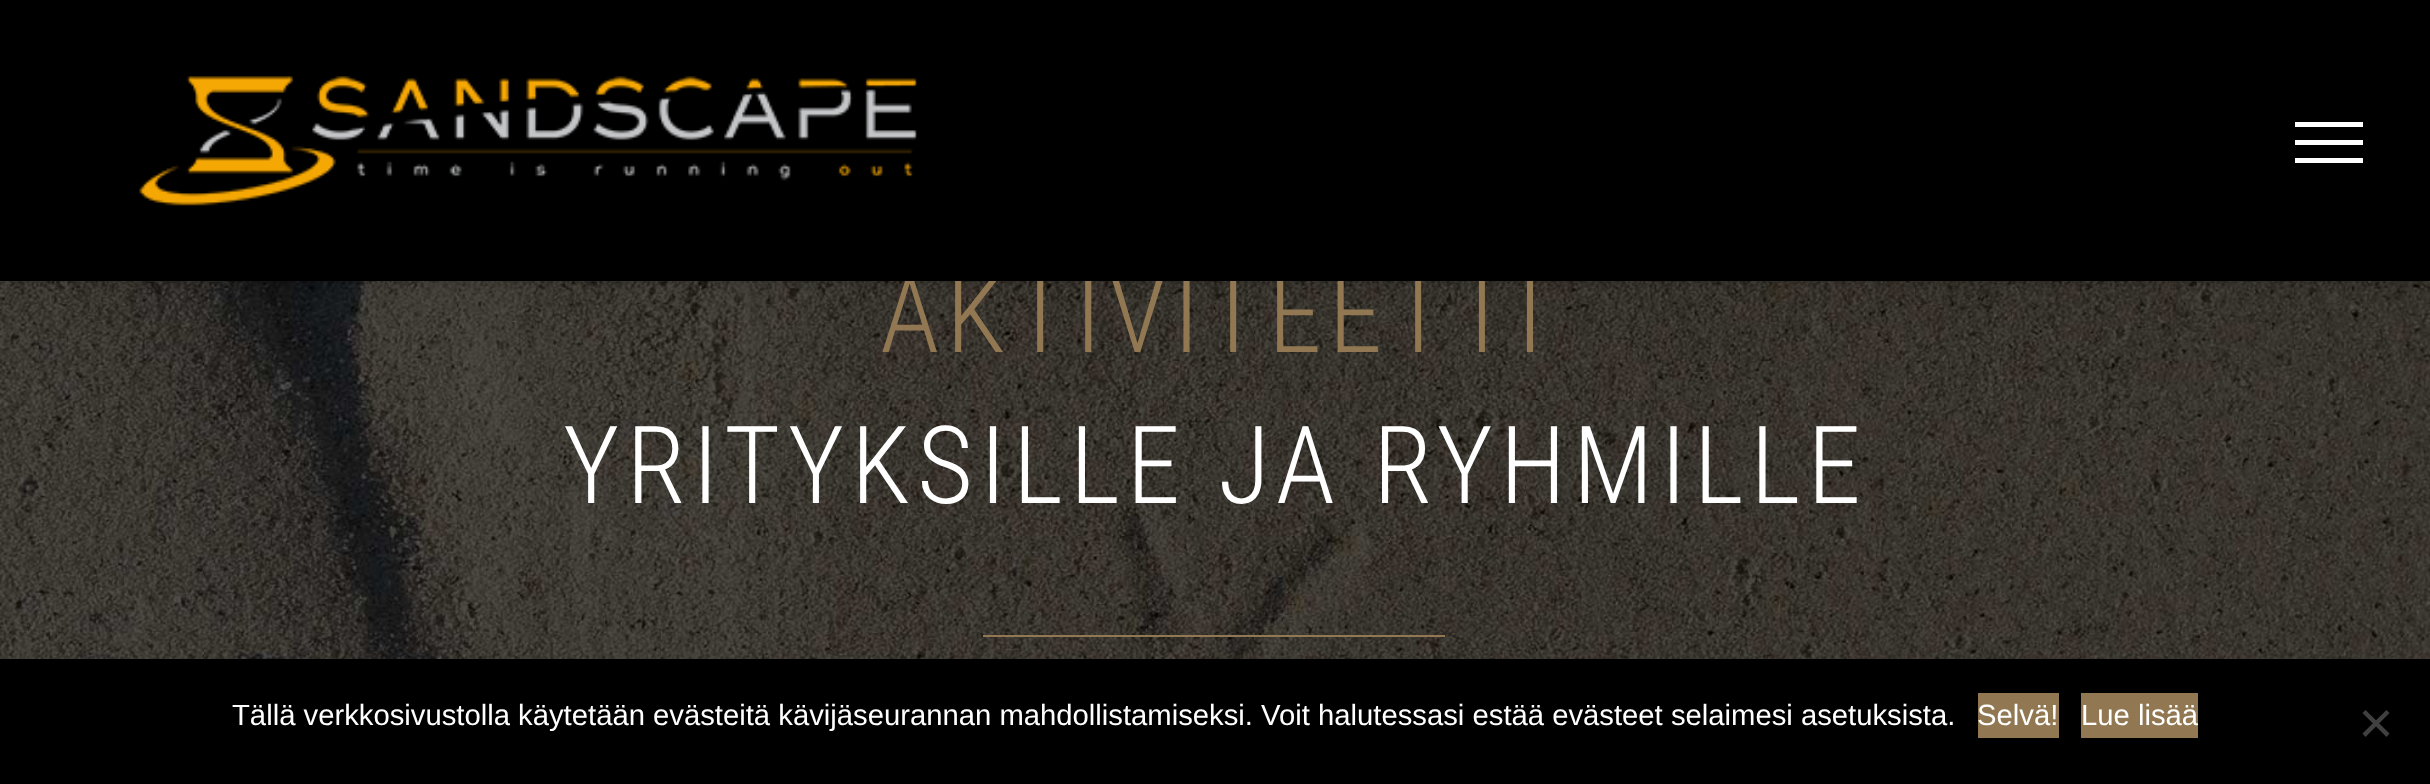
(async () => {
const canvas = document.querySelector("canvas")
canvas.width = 2430
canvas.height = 784
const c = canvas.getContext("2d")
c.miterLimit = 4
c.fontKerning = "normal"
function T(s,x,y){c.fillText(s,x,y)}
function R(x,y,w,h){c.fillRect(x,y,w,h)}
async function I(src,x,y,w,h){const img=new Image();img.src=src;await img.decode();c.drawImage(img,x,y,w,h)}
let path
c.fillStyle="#fff"
R(0,0,2430,784)
await I("2.png",0,281,2430,378)
c.fillStyle="#00000024"
c.filter="blur(56px)"
c.beginPath()
c.rect(5,-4,2421,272)
c.fill()
c.filter="none"
c.fillStyle="#0000001f"
c.filter="blur(3.5px)"
c.beginPath()
c.rect(0,2,2430,282)
c.fill()
c.filter="none"
c.letterSpacing="6.75px"
c.font="300 108px Roboto Condensed"
c.fillStyle="#917852"
T("AKTIVITEETTI",880,352)
c.fillStyle="#000"
R(0,0,2430,281)
await I("1.png",139,76,778,130)
c.fillStyle="#fff"
R(2295,122,68,5)
R(2295,140,68,5)
R(2295,158,68,5)
T("YRITYKSILLE JA RYHMILLE",563,503)
c.fillStyle="#917852"
R(983,635,462,2)
c.fillStyle="#000"
R(0,659,2430,125)
c.letterSpacing="0px"
c.font="29.25px Liberation Sans"
c.fillStyle="#fff"
T("Tällä verkkosivustolla käytetään evästeitä kävijäseurannan mahdollistamiseksi. Voit halutessasi estää evästeet selaimesi asetuksista.",232,725)
c.fillStyle="#917852"
R(1978,693,81,45)
c.fillStyle="#fff"
T("Selvä!",1977,725)
c.fillStyle="#917852"
R(2081,693,117,45)
c.fillStyle="#fff"
T("Lue lisää",2081,725)
c.fillStyle="#404040"
path = new Path2D("M2386.5 710l3 3l-24 24l-3-3.5z")
c.fill(path)
path = new Path2D("M2362.5 713l3-3l24 23.5l-3 3.5z")
c.fill(path)
})()
